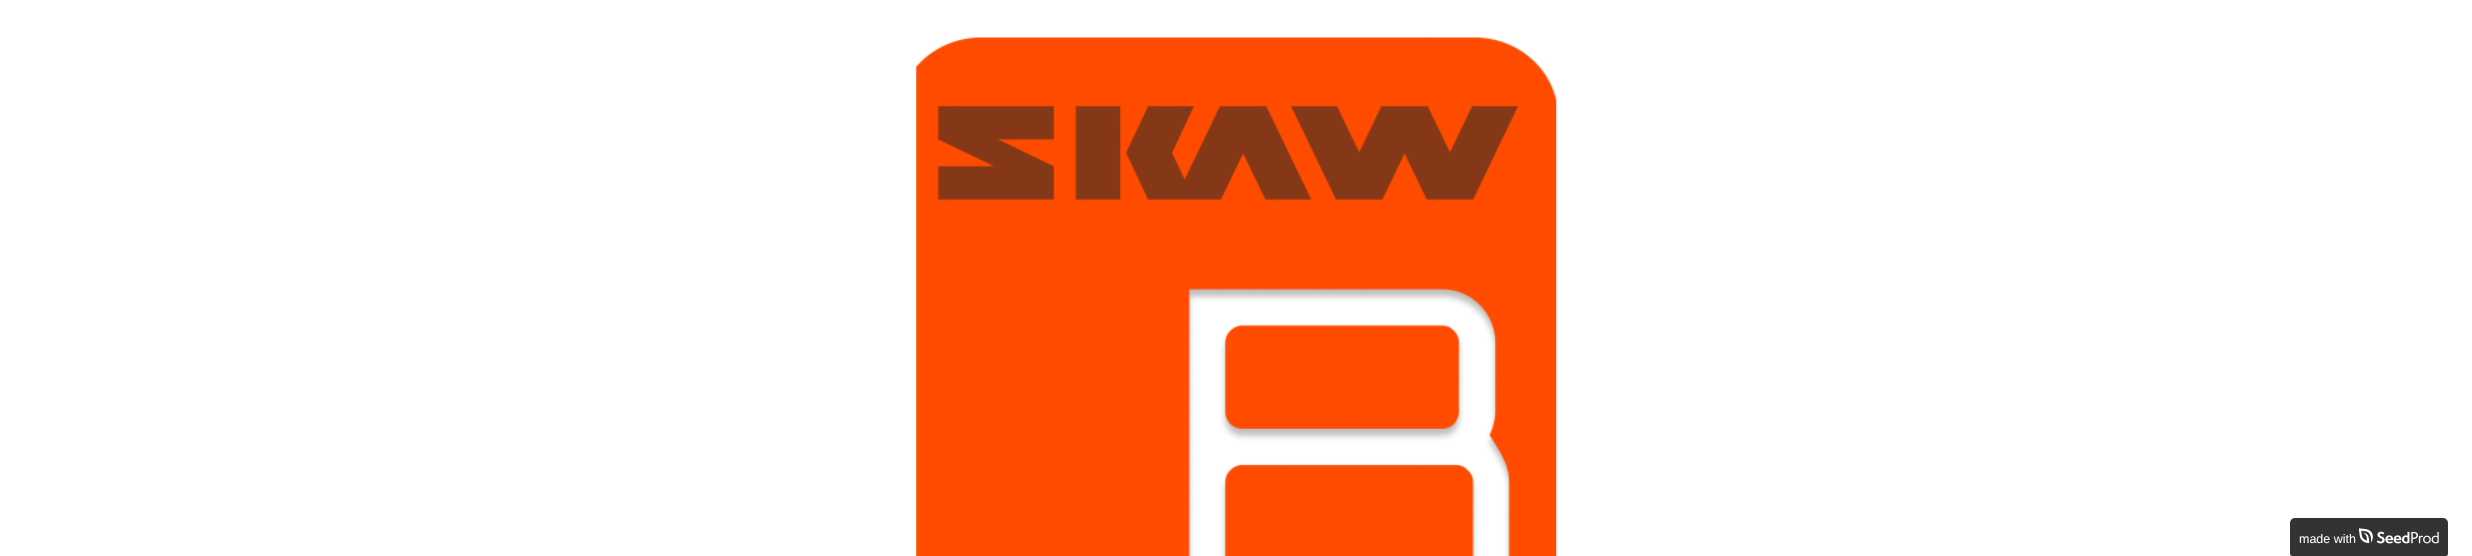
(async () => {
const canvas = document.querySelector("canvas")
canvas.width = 2472
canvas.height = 556
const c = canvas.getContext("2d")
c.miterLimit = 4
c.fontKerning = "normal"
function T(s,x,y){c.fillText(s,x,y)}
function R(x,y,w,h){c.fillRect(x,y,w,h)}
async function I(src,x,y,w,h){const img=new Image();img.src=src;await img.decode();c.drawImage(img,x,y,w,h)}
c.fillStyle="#fff"
R(0,0,2472,556)
await I("1.png",916,37,641,519)
c.fillStyle="#333"
c.beginPath()
c.roundRect(2290,518,158,38,[5,5,2.5,2.5])
c.fill()
c.font="12.5px Liberation Sans"
c.fillStyle="#fff"
T("made with",2299,543)
await I("2.png",2359,528,80,16)
})()
